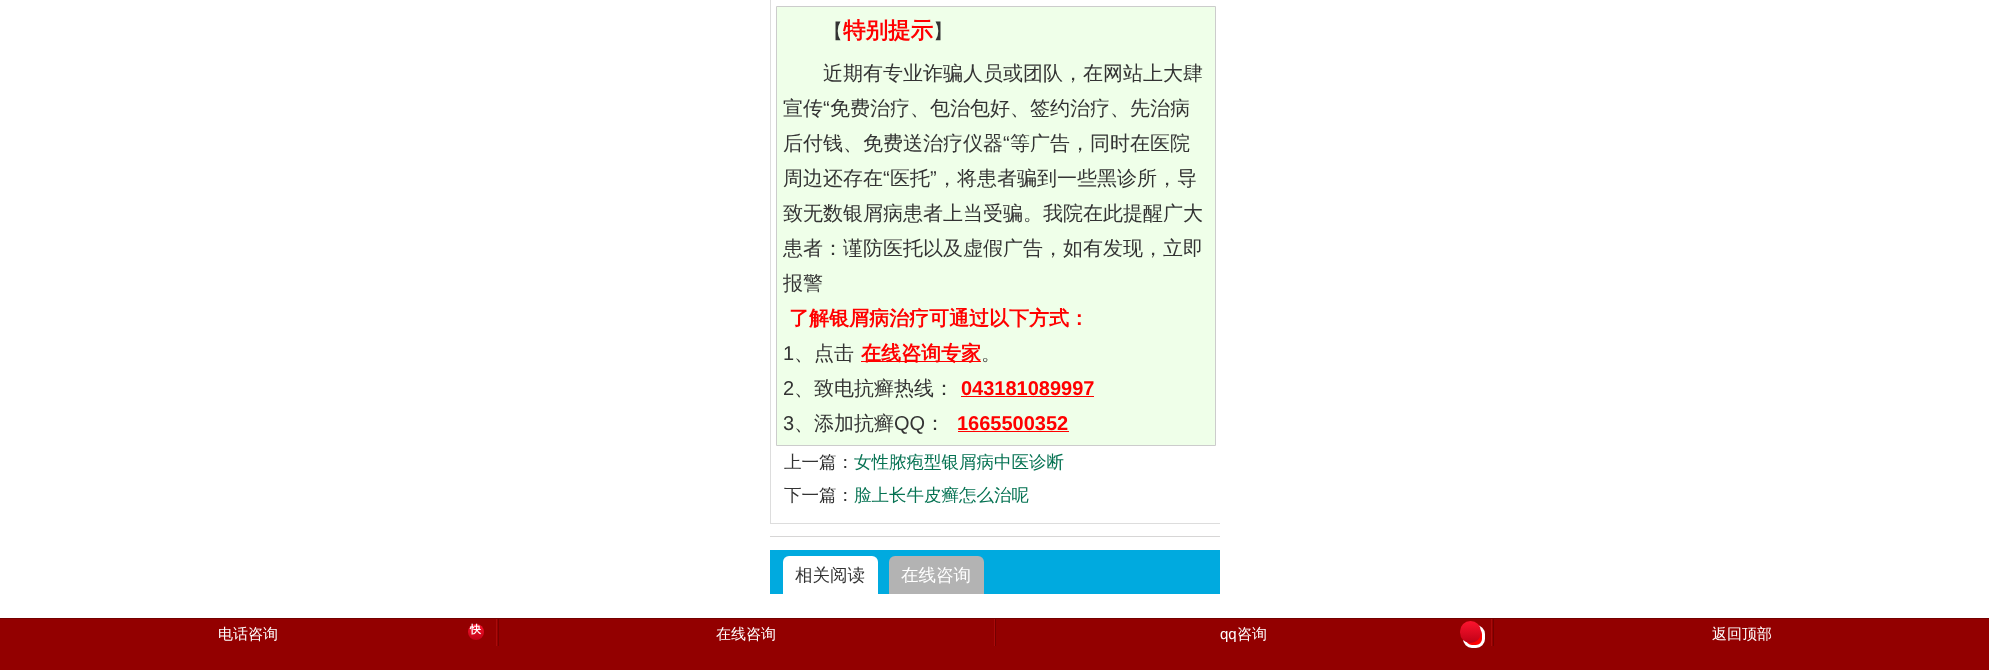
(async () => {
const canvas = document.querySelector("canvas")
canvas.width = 1989
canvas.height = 670
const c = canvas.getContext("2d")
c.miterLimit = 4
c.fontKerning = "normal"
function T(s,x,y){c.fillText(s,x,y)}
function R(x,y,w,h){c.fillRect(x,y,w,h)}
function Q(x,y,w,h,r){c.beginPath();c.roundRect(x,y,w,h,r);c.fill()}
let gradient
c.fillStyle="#fff"
R(0,0,1989,670)
c.fillStyle="#d7d6d6"
R(770,536,450,1)
c.save()
c.beginPath()
c.rect(770,0,450,536)
c.clip()
c.strokeStyle="#ddd"
c.strokeRect(770.5,-.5,452,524)
c.restore()
c.fillStyle="#efffe9"
c.beginPath()
c.rect(776.5,6.5,439,439)
c.fill()
c.strokeStyle="#ccc"
c.stroke()
c.font="500 20px WenQuanYi Zen Hei"
c.fillStyle="#333"
T("【",823,38)
c.font="bold 22.5px WenQuanYi Zen Hei"
c.fillStyle="#f00"
T("特别提示",843,38)
c.font="500 20px WenQuanYi Zen Hei"
c.fillStyle="#333"
T("】",933,38)
T("近期有专业诈骗人员或团队，在网站上大肆",823,80)
T("宣传",783,115)
c.font="20px Liberation Sans"
T("“",823,115)
c.font="500 20px WenQuanYi Zen Hei"
T("免费治疗、包治包好、签约治疗、先治病",830,115)
T("后付钱、免费送治疗仪器",783,150)
c.font="20px Liberation Sans"
T("“",1003,150)
c.font="500 20px WenQuanYi Zen Hei"
T("等广告，同时在医院",1010,150)
T("周边还存在",783,185)
c.font="20px Liberation Sans"
T("“",883,185)
c.font="500 20px WenQuanYi Zen Hei"
T("医托",890,185)
c.font="20px Liberation Sans"
T("”",930,185)
c.font="500 20px WenQuanYi Zen Hei"
T("，将患者骗到一些黑诊所，导",937,185)
T("致无数银屑病患者上当受骗。我院在此提醒广大",783,220)
T("患者：谨防医托以及虚假广告，如有发现，立即",783,255)
T("报警",783,290)
c.font="bold 20px WenQuanYi Zen Hei"
c.fillStyle="#f00"
T("了解银屑病治疗可通过以下方式：",789,325)
c.font="20px Liberation Sans"
c.fillStyle="#333"
T("1",783,360)
c.font="500 20px WenQuanYi Zen Hei"
T("、点击",794,360)
c.fillStyle="#f00"
R(861,361,120,1)
c.font="bold 20px WenQuanYi Zen Hei"
T("在线咨询专家",861,360)
c.font="500 20px WenQuanYi Zen Hei"
c.fillStyle="#333"
T("。",981,360)
c.font="20px Liberation Sans"
T("2",783,395)
c.font="500 20px WenQuanYi Zen Hei"
T("、致电抗癣热线：",794,395)
c.font="bold 20px Liberation Sans"
c.fillStyle="#f00"
T("043181089997",961,395)
R(961,396,133,1)
c.font="20px Liberation Sans"
c.fillStyle="#333"
T("3",783,430)
c.font="500 20px WenQuanYi Zen Hei"
T("、添加抗癣",794,430)
c.font="20px Liberation Sans"
T("QQ",894,430)
c.font="500 20px WenQuanYi Zen Hei"
T("：",925,430)
c.font="bold 20px Liberation Sans"
c.fillStyle="#f00"
T("1665500352",957,430)
R(958,431,111,1)
c.font="500 17.5px WenQuanYi Zen Hei"
c.fillStyle="#333"
T("上一篇：",784,468)
c.fillStyle="#057252"
T("女性脓疱型银屑病中医诊断",854,468)
c.fillStyle="#333"
T("下一篇：",784,501)
c.fillStyle="#057252"
T("脸上长牛皮癣怎么治呢",854,501)
c.fillStyle="#00aadf"
R(770,550,450,44)
c.fillStyle="#fff"
c.beginPath()
c.roundRect(783,556,95,38,[6,6,0,0])
c.fill()
c.fillStyle="#333"
T("相关阅读",795,581)
c.fillStyle="#b3b3b3"
c.beginPath()
c.roundRect(889,556,95,38,[6,6,0,0])
c.fill()
c.fillStyle="#fff"
T("在线咨询",901,581)
c.fillStyle="#740000"
R(0,618,1989,1)
c.fillStyle="#930000"
R(0,619,995,51)
c.fillStyle="#aa0a0a"
R(496,619,1,27)
c.font="500 15px WenQuanYi Zen Hei"
c.fillStyle="#fff"
T("电话咨询",218,639)
gradient = c.createLinearGradient(476,624,476,640)
gradient.addColorStop(0,"#fd142e")
gradient.addColorStop(1,"#bf0116")
c.fillStyle = gradient
c.beginPath()
c.arc(476,632,8,0,7)
c.fill()
c.font="bold 11px WenQuanYi Zen Hei"
c.fillStyle="#fff"
T("快",470,633)
c.fillStyle="#aa0a0a"
R(994,619,1,27)
c.fillStyle="#740000"
R(498,619,1,27)
c.font="500 15px WenQuanYi Zen Hei"
c.fillStyle="#fff"
T("在线咨询",716,639)
c.fillStyle="#930000"
R(995,619,994,51)
c.fillStyle="#aa0a0a"
R(1491,619,1,27)
c.fillStyle="#740000"
R(995,619,1,27)
c.fillStyle="#f00"
c.beginPath()
c.roundRect(1464.5,626.5,19,20,7.5)
c.fill()
c.strokeStyle="#fff"
c.lineWidth=3
c.stroke()
gradient = c.createLinearGradient(1471,621,1471,643)
gradient.addColorStop(0,"#fd142e")
gradient.addColorStop(1,"#bf0116")
c.fillStyle = gradient
Q(1460,621,21,22,10.5)
c.font="15px Liberation Sans"
c.fillStyle="#fff"
T("qq",1220,639)
c.font="500 15px WenQuanYi Zen Hei"
T("咨询",1237,639)
c.fillStyle="#740000"
R(1493,619,1,27)
c.fillStyle="#fff"
T("返回顶部",1712,639)
})()
